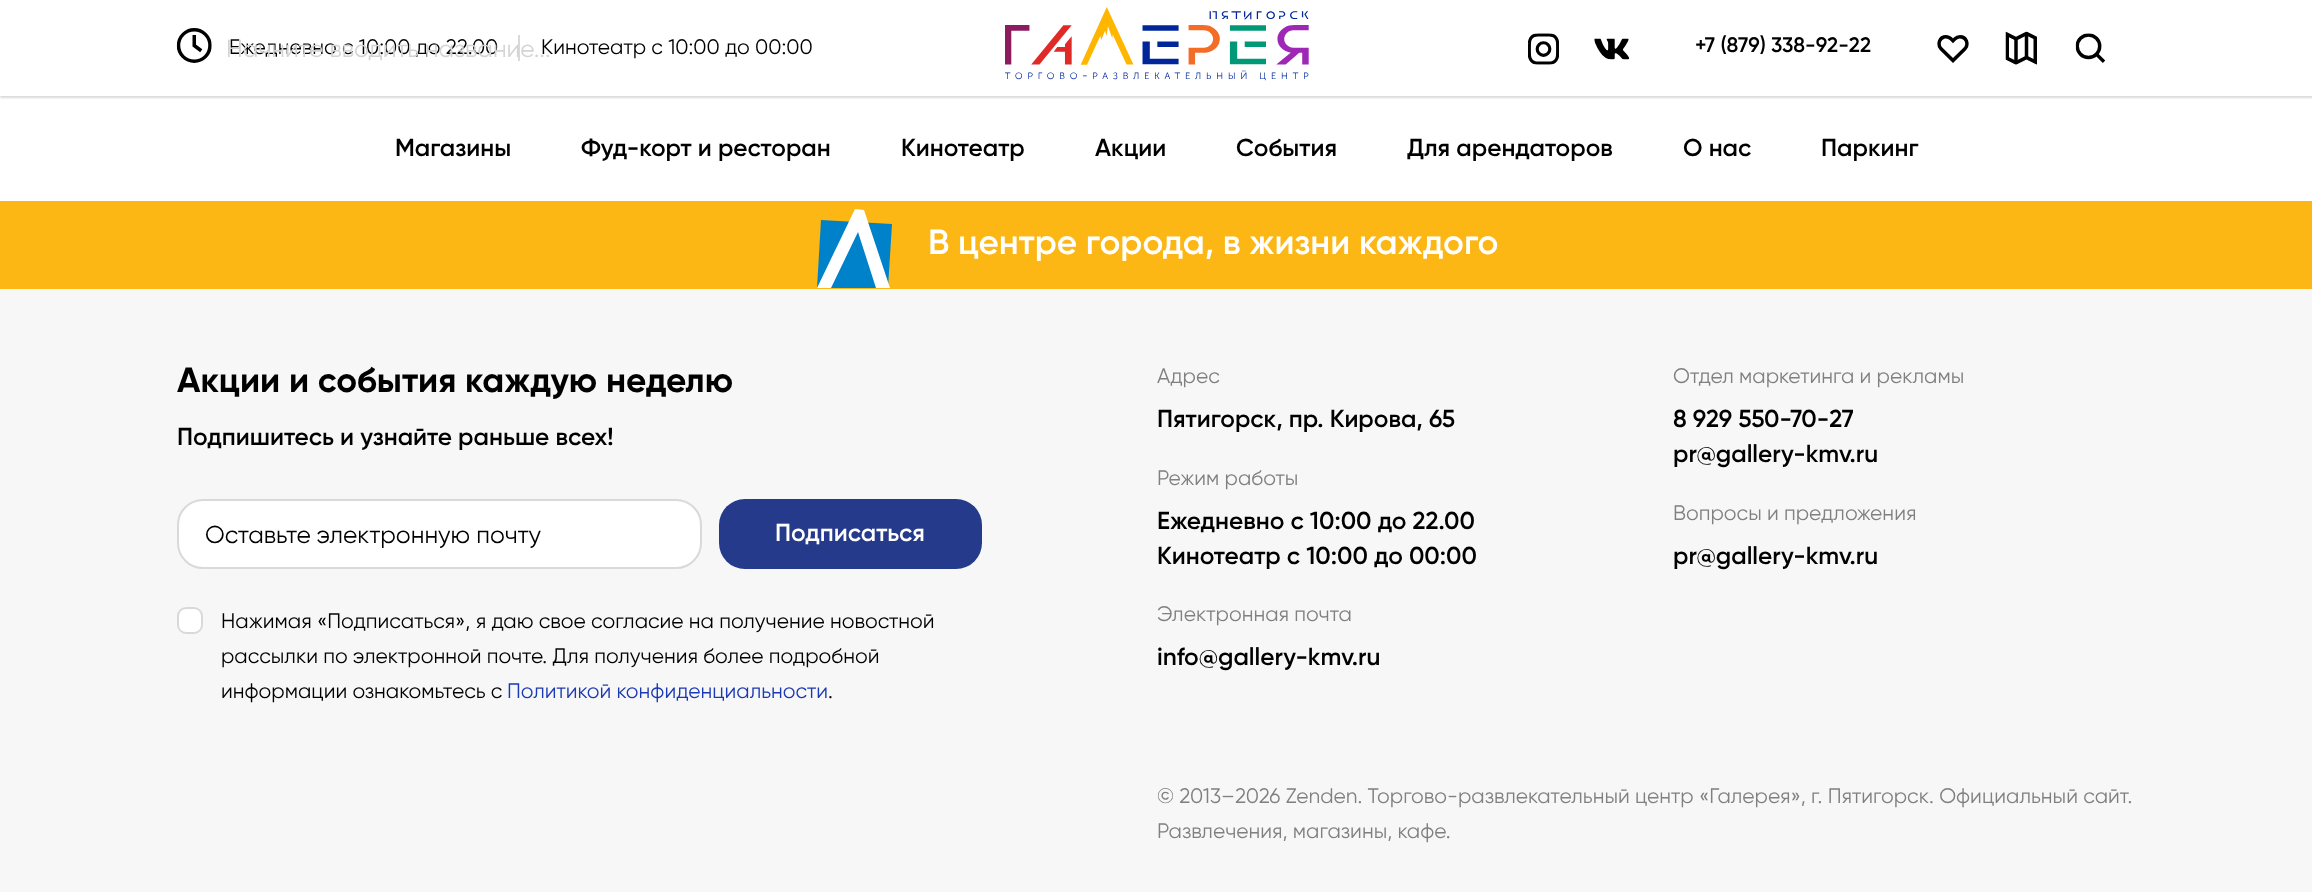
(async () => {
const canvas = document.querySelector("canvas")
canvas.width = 2312
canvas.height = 892
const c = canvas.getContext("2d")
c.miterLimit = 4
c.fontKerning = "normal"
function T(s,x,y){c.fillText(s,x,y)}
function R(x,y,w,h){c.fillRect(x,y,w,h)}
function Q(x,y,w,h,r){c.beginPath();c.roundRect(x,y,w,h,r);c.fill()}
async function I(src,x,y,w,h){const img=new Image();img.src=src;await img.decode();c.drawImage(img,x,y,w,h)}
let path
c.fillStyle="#fff"
R(0,0,2312,892)
c.save()
c.beginPath()
c.rect(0,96,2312,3)
c.clip()
c.fillStyle="#00000026"
c.filter="blur(1px)"
c.beginPath()
c.rect(0,2,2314,96)
c.fill()
c.filter="none"
c.restore()
await I("1.png",1005,7,304,74)
c.font="21px Gilroy"
c.fillStyle="#000"
T("Ежедневно с 10:00 до 22.00",229,54)
c.fillStyle="#d9d9d9"
R(518,35,2,26)
c.fillStyle="#000"
T("Кинотеатр с 10:00 до 00:00",541,54)
c.font="24.5px Gilroy"
c.fillStyle="#d4d4d4"
T("Начните вводить название...",226,57)
await I("2.png",1937,35,32,28)
await I("3.png",2005,31,32,34)
await I("4.png",2075,33,30,30)
await I("5.png",1528,33,31,32)
await I("6.png",1594,38,36,22)
c.font="600 21px Gilroy"
c.fillStyle="#000"
T("+7 (879) 338-92-22",1695,52)
await I("7.png",176,28,36,35)
c.font="600 24.5px Gilroy"
T("Магазины",395,156)
T("Фуд-корт и ресторан",581,156)
T("Кинотеатр",901,156)
T("Акции",1095,156)
T("События",1236,156)
T("Для арендаторов",1407,156)
T("О нас",1683,156)
T("Паркинг",1821,156)
c.fillStyle="#fdb714"
R(0,201,2312,88)
c.fillStyle="#0082ca"
path = new Path2D("M888 288h-71l4-68l71 4z")
c.fill(path)
c.fillStyle="#fff"
path = new Path2D("M890 288h-14l-18-56l-27 56h-14l38-79l9 1z")
c.fill(path)
c.font="600 35px Gilroy"
T("В центре города, в жизни каждого",928,254)
c.fillStyle="#f7f7f7"
R(0,289,2312,603)
c.font="bold 35px Gilroy"
c.fillStyle="#000"
T("Акции и события каждую неделю",177,392)
c.font="600 24.5px Gilroy"
T("Подпишитесь и узнайте раньше всех!",177,445)
c.fillStyle="#fff"
c.beginPath()
c.roundRect(178,500,523,68,25)
c.fill()
c.strokeStyle="#d9d9d9"
c.lineWidth=2
c.stroke()
c.font="24.5px Gilroy"
c.fillStyle="#000"
T("Оставьте электронную почту",205,543)
c.fillStyle="#263a8b"
Q(719,499,263,70,26)
c.font="600 24.5px Gilroy"
c.fillStyle="#fff"
T("Подписаться",775,541)
c.beginPath()
c.roundRect(178,608,24,25,8)
c.fill()
c.stroke()
c.font="21px Gilroy"
c.fillStyle="#000"
T("Нажимая «Подписаться», я даю свое согласие на получение новостной",221,628)
T("рассылки по электронной почте. Для получения более подробной",221,663)
T("информации ознакомьтесь с",221,698)
c.fillStyle="#1b39b3"
T("Политикой конфиденциальности",507,698)
c.fillStyle="#000"
T(".",828,698)
c.fillStyle="#808080"
T("Адрес",1157,383)
c.font="600 24.5px Gilroy"
c.fillStyle="#000"
T("Пятигорск, пр. Кирова, 65",1157,427)
c.font="21px Gilroy"
c.fillStyle="#808080"
T("Отдел маркетинга и рекламы",1673,383)
c.font="600 24.5px Gilroy"
c.fillStyle="#000"
T("8 929 550-70-27",1673,427)
T("pr@gallery-kmv.ru",1673,462)
c.font="21px Gilroy"
c.fillStyle="#808080"
T("Режим работы",1157,485)
c.font="600 24.5px Gilroy"
c.fillStyle="#000"
T("Ежедневно с 10:00 до 22.00",1157,529)
T("Кинотеатр с 10:00 до 00:00",1157,564)
c.font="21px Gilroy"
c.fillStyle="#808080"
T("Вопросы и предложения",1673,520)
c.font="600 24.5px Gilroy"
c.fillStyle="#000"
T("pr@gallery-kmv.ru",1673,564)
c.font="21px Gilroy"
c.fillStyle="#808080"
T("Электронная почта",1157,621)
c.font="600 24.5px Gilroy"
c.fillStyle="#000"
T("info@gallery-kmv.ru",1157,665)
c.font="21px Gilroy"
c.fillStyle="#808080"
T("© 2013–2026 Zenden. Торгово-развлекательный центр «Галерея», г. Пятигорск. Официальный сайт.",1157,803)
T("Развлечения, магазины, кафе.",1157,838)
})()
